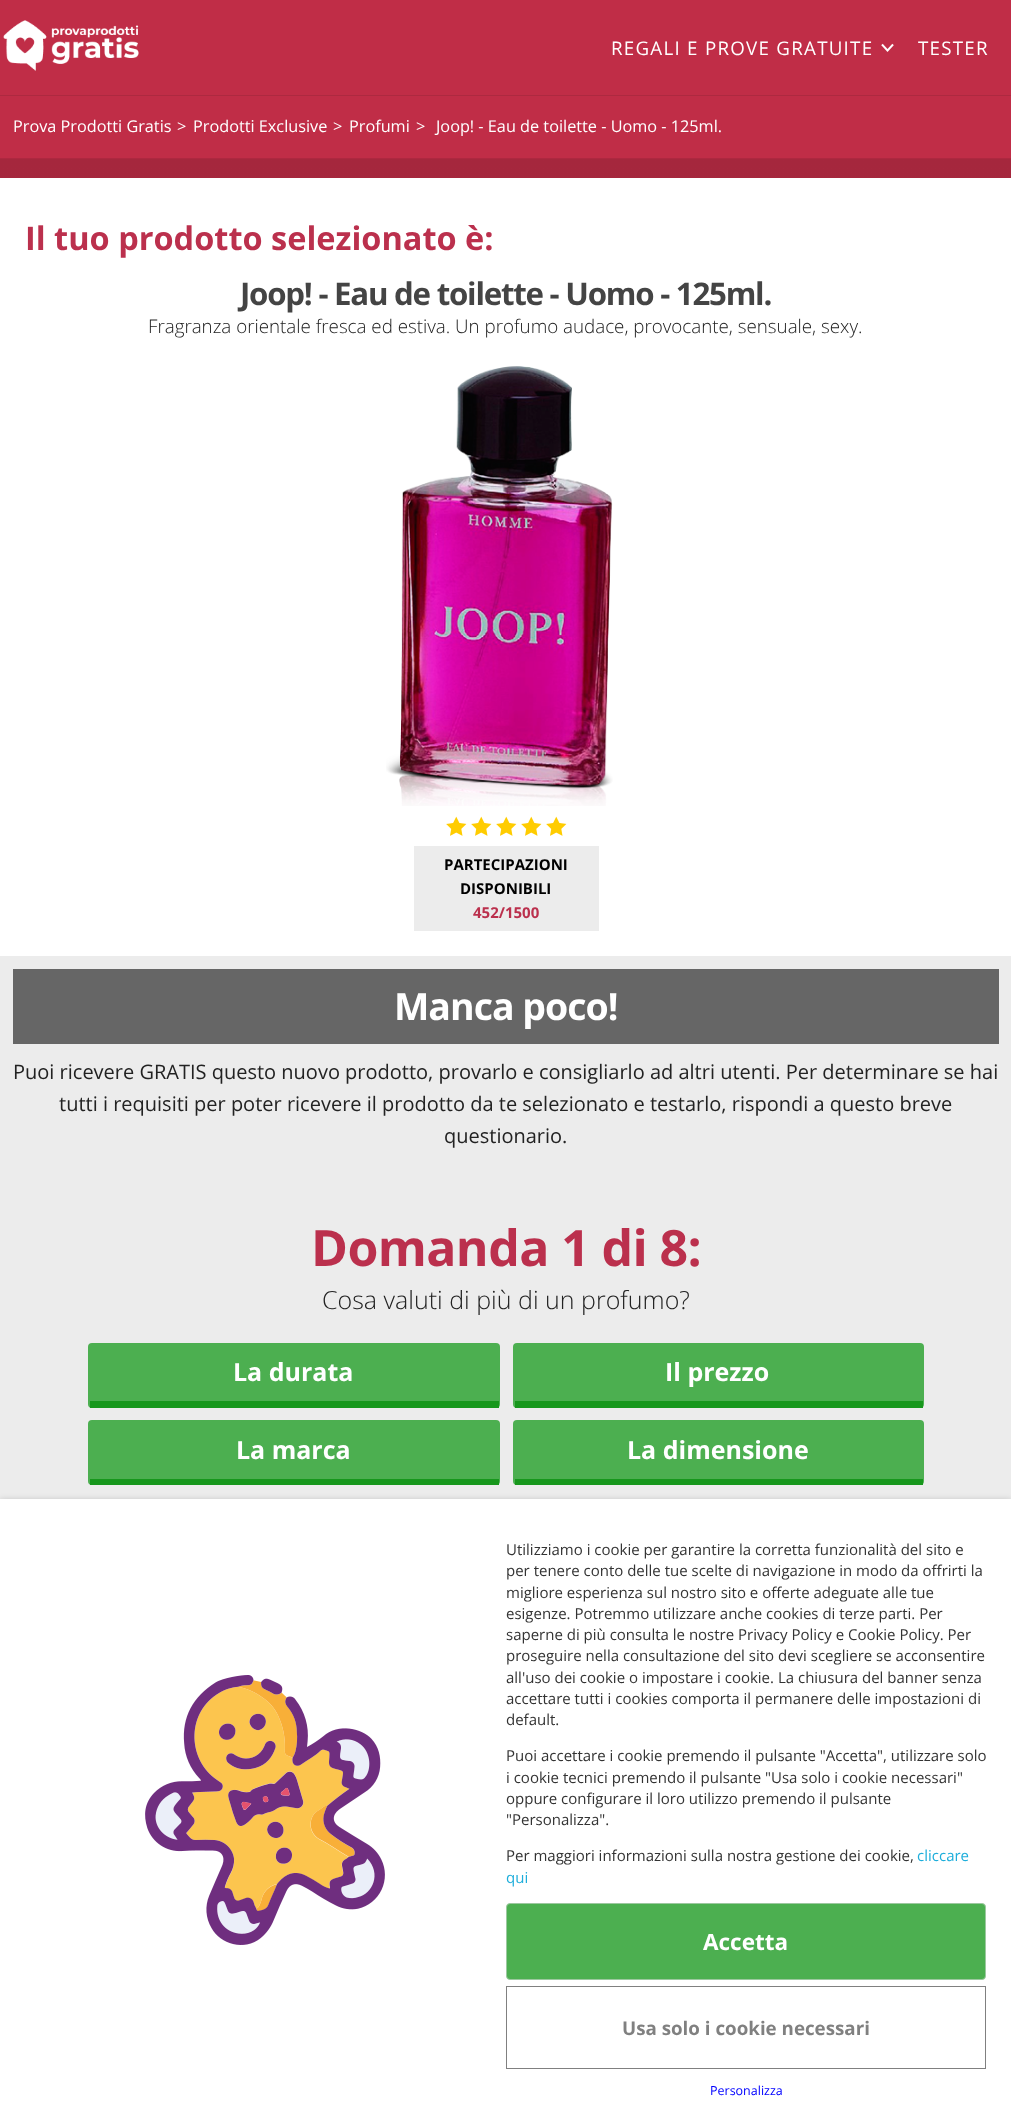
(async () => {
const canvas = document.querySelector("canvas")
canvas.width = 1011
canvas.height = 2125
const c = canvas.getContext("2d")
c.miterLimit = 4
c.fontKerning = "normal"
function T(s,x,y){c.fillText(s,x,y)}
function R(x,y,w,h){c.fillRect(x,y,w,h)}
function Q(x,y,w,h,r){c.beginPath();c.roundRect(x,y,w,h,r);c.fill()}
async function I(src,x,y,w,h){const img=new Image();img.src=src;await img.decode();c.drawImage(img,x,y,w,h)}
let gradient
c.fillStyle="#c02d47"
R(0,0,1011,2125)
c.fillStyle="#ad2940"
R(0,95,1011,1)
await I("1.png",3,20,136,51)
c.letterSpacing="1.25px"
c.font="18.75px Open Sans"
c.fillStyle="#fff"
T("REGALI E PROVE GRATUITE",611,55)
await I("2.png",881,43,13,9)
T("TESTER",918,55)
c.fillStyle="#ad2840"
R(0,158,1011,1)
c.letterSpacing="0px"
c.font="16.25px Open Sans"
c.fillStyle="#fff"
T("Prova Prodotti Gratis",13,132)
T(">",177,132)
T("Prodotti Exclusive",193,132)
T(">",333,132)
T("Profumi",349,132)
T(">",416,132)
T("Joop! - Eau de toilette - Uomo - 125ml.",436,132)
gradient = c.createLinearGradient(506,1859,506,159)
gradient.addColorStop(0,"#c02d47")
gradient.addColorStop(1,"#a5273d")
c.fillStyle = gradient
R(0,159,1011,19)
c.fillStyle="#fff"
R(0,178,1011,778)
c.font="bold 32.5px Open Sans"
c.fillStyle="#bb304d"
T("Il tuo prodotto selezionato è:",25,250)
c.letterSpacing="-1.25px"
c.font="bold 31.25px Open Sans"
c.fillStyle="#444"
T("Joop! - Eau de toilette - Uomo - 125ml.",240,305)
c.letterSpacing="0px"
c.font="300 18.75px Open Sans"
c.fillStyle="#222"
T("Fragranza orientale fresca ed estiva. Un profumo audace, provocante, sensuale, sexy.",148,333)
await I("3.png",386,366,227,440)
await I("4.png",446,816,21,20)
await I("4.png",471,816,21,20)
await I("4.png",496,816,21,20)
await I("4.png",521,816,21,20)
await I("4.png",546,816,21,20)
c.fillStyle="#ececec"
R(414,846,185,85)
c.font="bold 15px Open Sans"
c.fillStyle="#000"
T("PARTECIPAZIONI",444,870)
T("DISPONIBILI",460,894)
c.fillStyle="#bb304d"
T("452/1500",473,918)
c.fillStyle="#ececec"
R(0,956,1011,543)
c.fillStyle="#666"
R(13,969,986,75)
c.letterSpacing="-1px"
c.font="bold 37.5px Open Sans"
c.fillStyle="#fff"
T("Manca poco!",394,1020)
c.letterSpacing="0px"
c.font="20px Open Sans"
c.fillStyle="#222"
T("Puoi ricevere GRATIS questo nuovo prodotto, provarlo e consigliarlo ad altri utenti. Per determinare se hai",13,1079)
T("tutti i requisiti per poter ricevere il prodotto da te selezionato e testarlo, rispondi a questo breve",59,1111)
T("questionario.",444,1143)
c.letterSpacing="-0.6px"
c.font="bold 50px Open Sans"
c.fillStyle="#bb304d"
T("Domanda 1 di 8:",311,1266)
c.letterSpacing="0px"
c.font="300 25px Open Sans"
c.fillStyle="#222"
T("Cosa valuti di più di un profumo?",322,1309)
c.fillStyle="#4caf50"
Q(88,1343,412,65,4)
c.fillStyle="#17971c"
R(90,1401,409,7)
c.font="bold 25px Open Sans"
c.fillStyle="#fff"
T("La durata",233,1381)
c.fillStyle="#4caf50"
Q(513,1343,411,65,4)
c.fillStyle="#17971c"
R(515,1401,408,7)
c.fillStyle="#fff"
T("Il prezzo",665,1381)
c.fillStyle="#4caf50"
Q(88,1420,412,65,4)
c.fillStyle="#17971c"
R(90,1479,409,6)
c.fillStyle="#fff"
T("La marca",236,1459)
c.fillStyle="#4caf50"
Q(513,1420,411,65,4)
c.fillStyle="#17971c"
R(515,1479,408,6)
c.fillStyle="#fff"
T("La dimensione",627,1459)
c.fillStyle="#00000033"
c.filter="blur(3px)"
c.beginPath()
c.rect(0,1500,1011,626)
c.fill()
c.filter="none"
c.fillStyle="#fff"
R(0,1499,1011,626)
await I("5.png",145,1675,240,270)
c.font="15px Open Sans"
c.fillStyle="#333"
T("Utilizziamo i cookie per garantire la corretta funzionalità del sito e",506,1555)
T("per tenere conto delle tue scelte di navigazione in modo da offrirti la",506,1576)
T("migliore esperienza sul nostro sito e offerte adeguate alle tue",506,1598)
T("esigenze. Potremmo utilizzare anche cookies di terze parti. Per",506,1619)
T("saperne di più consulta le nostre Privacy Policy e Cookie Policy. Per",506,1640)
T("proseguire nella consultazione del sito devi scegliere se acconsentire",506,1661)
T("all'uso dei cookie o impostare i cookie. La chiusura del banner senza",506,1683)
T("accettare tutti i cookies comporta il permanere delle impostazioni di",506,1704)
T("default.",506,1725)
T("Puoi accettare i cookie premendo il pulsante \"Accetta\", utilizzare solo",506,1761)
T("i cookie tecnici premendo il pulsante \"Usa solo i cookie necessari\"",506,1783)
T("oppure configurare il loro utilizzo premendo il pulsante",506,1804)
T("\"Personalizza\".",506,1825)
T("Per maggiori informazioni sulla nostra gestione dei cookie,",506,1861)
c.fillStyle="#1eaedb"
T("cliccare",917,1861)
T("qui",506,1883)
c.fillStyle="#4caf50"
c.beginPath()
c.roundRect(506.5,1903.5,479,76,3.5)
c.fill()
c.strokeStyle="#9dc8a0"
c.stroke()
c.font="bold 22.5px Open Sans"
c.fillStyle="#fff"
T("Accetta",703,1950)
c.strokeStyle="#808080"
c.strokeRect(506.5,1986.5,479,82)
c.font="bold 18.75px Open Sans"
c.fillStyle="#808080"
T("Usa solo i cookie necessari",622,2035)
c.font="12.5px Open Sans"
c.fillStyle="#00f"
T("Personalizza",710,2095)
})()
